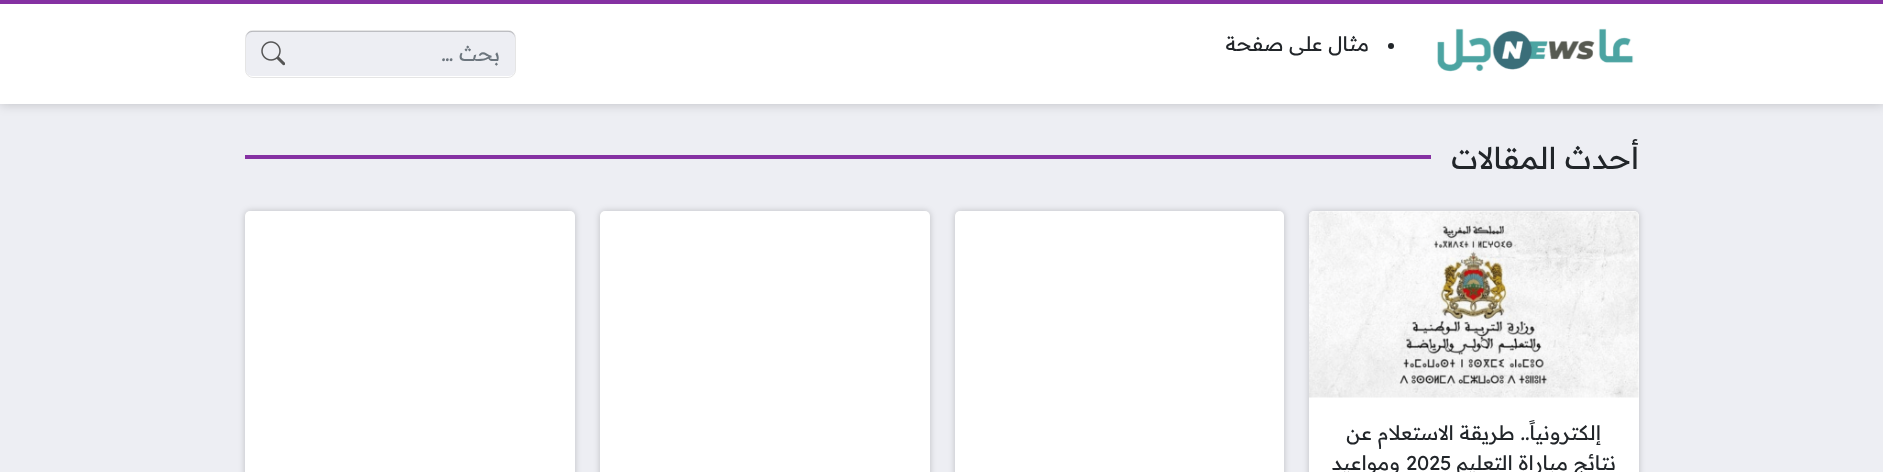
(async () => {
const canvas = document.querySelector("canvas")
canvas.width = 1883
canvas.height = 472
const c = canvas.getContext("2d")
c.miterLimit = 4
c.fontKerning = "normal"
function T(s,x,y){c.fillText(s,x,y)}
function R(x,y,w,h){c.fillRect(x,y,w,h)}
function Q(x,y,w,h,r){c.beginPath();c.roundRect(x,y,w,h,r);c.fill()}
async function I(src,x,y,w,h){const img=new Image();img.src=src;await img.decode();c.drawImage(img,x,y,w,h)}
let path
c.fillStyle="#edeef3"
R(0,0,1883,472)
c.fillStyle="#00000033"
c.filter="blur(6px)"
c.beginPath()
c.rect(0,0,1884,104)
c.fill()
c.filter="none"
c.fillStyle="#8531a2"
R(0,0,1883,4)
c.fillStyle="#fff"
R(0,4,1883,100)
await I("1.png",1437,28,197,44)
c.fillStyle="#212529"
c.beginPath()
c.arc(1391,46,3,0,7)
c.fill()
c.direction="rtl"
c.font="20px Readex Pro"
T("مثال على صفحة",1369,51)
c.fillStyle="#edeef3"
Q(246,31,269,45,6)
await I("2.png",261,41,24,25)
c.fillStyle="#00000033"
path = new Path2D("M252 32h257c3 0 6 3 6 7c0-3-1-7-5-8h-259c-4 1-5 5-5 8c0-4 3-7 6-7z")
c.fill(path)
c.beginPath()
c.roundRect(245.5,30.5,270,47,7.5)
c.strokeStyle="#0000001a"
c.stroke()
c.fillStyle="#6c757d"
T("بحث …",500,61)
c.font="30px Readex Pro"
c.fillStyle="#212529"
T("أحدث المقالات",1639,169)
c.fillStyle="#8531a2"
R(245,155,1186,4)
c.fillStyle="#00000033"
c.filter="blur(3px)"
c.beginPath()
c.roundRect(1309,211,330,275,5)
c.fill()
c.filter="none"
c.fillStyle="#fff"
Q(1309,211,330,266,5)
await I("3.png",1309,211,330,187)
c.font="20px Readex Pro"
c.fillStyle="#212529"
T("إلكترونياً.. طريقة الاستعلام عن",1601,440)
T("نتائج مباراة التعليم",1616,470)
c.direction="ltr"
T("2025",1406,470)
c.direction="rtl"
T("ومواعيد",1400,470)
c.fillStyle="#00000033"
c.filter="blur(3px)"
c.beginPath()
c.roundRect(955,211,329,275,5)
c.fill()
c.filter="none"
c.fillStyle="#fff"
Q(955,211,329,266,5)
c.fillStyle="#00000033"
c.filter="blur(3px)"
c.beginPath()
c.roundRect(600,211,330,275,5)
c.fill()
c.filter="none"
c.fillStyle="#fff"
Q(600,211,330,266,5)
c.fillStyle="#00000033"
c.filter="blur(3px)"
c.beginPath()
c.roundRect(245,211,330,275,5)
c.fill()
c.filter="none"
c.fillStyle="#fff"
Q(245,211,330,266,5)
})()
